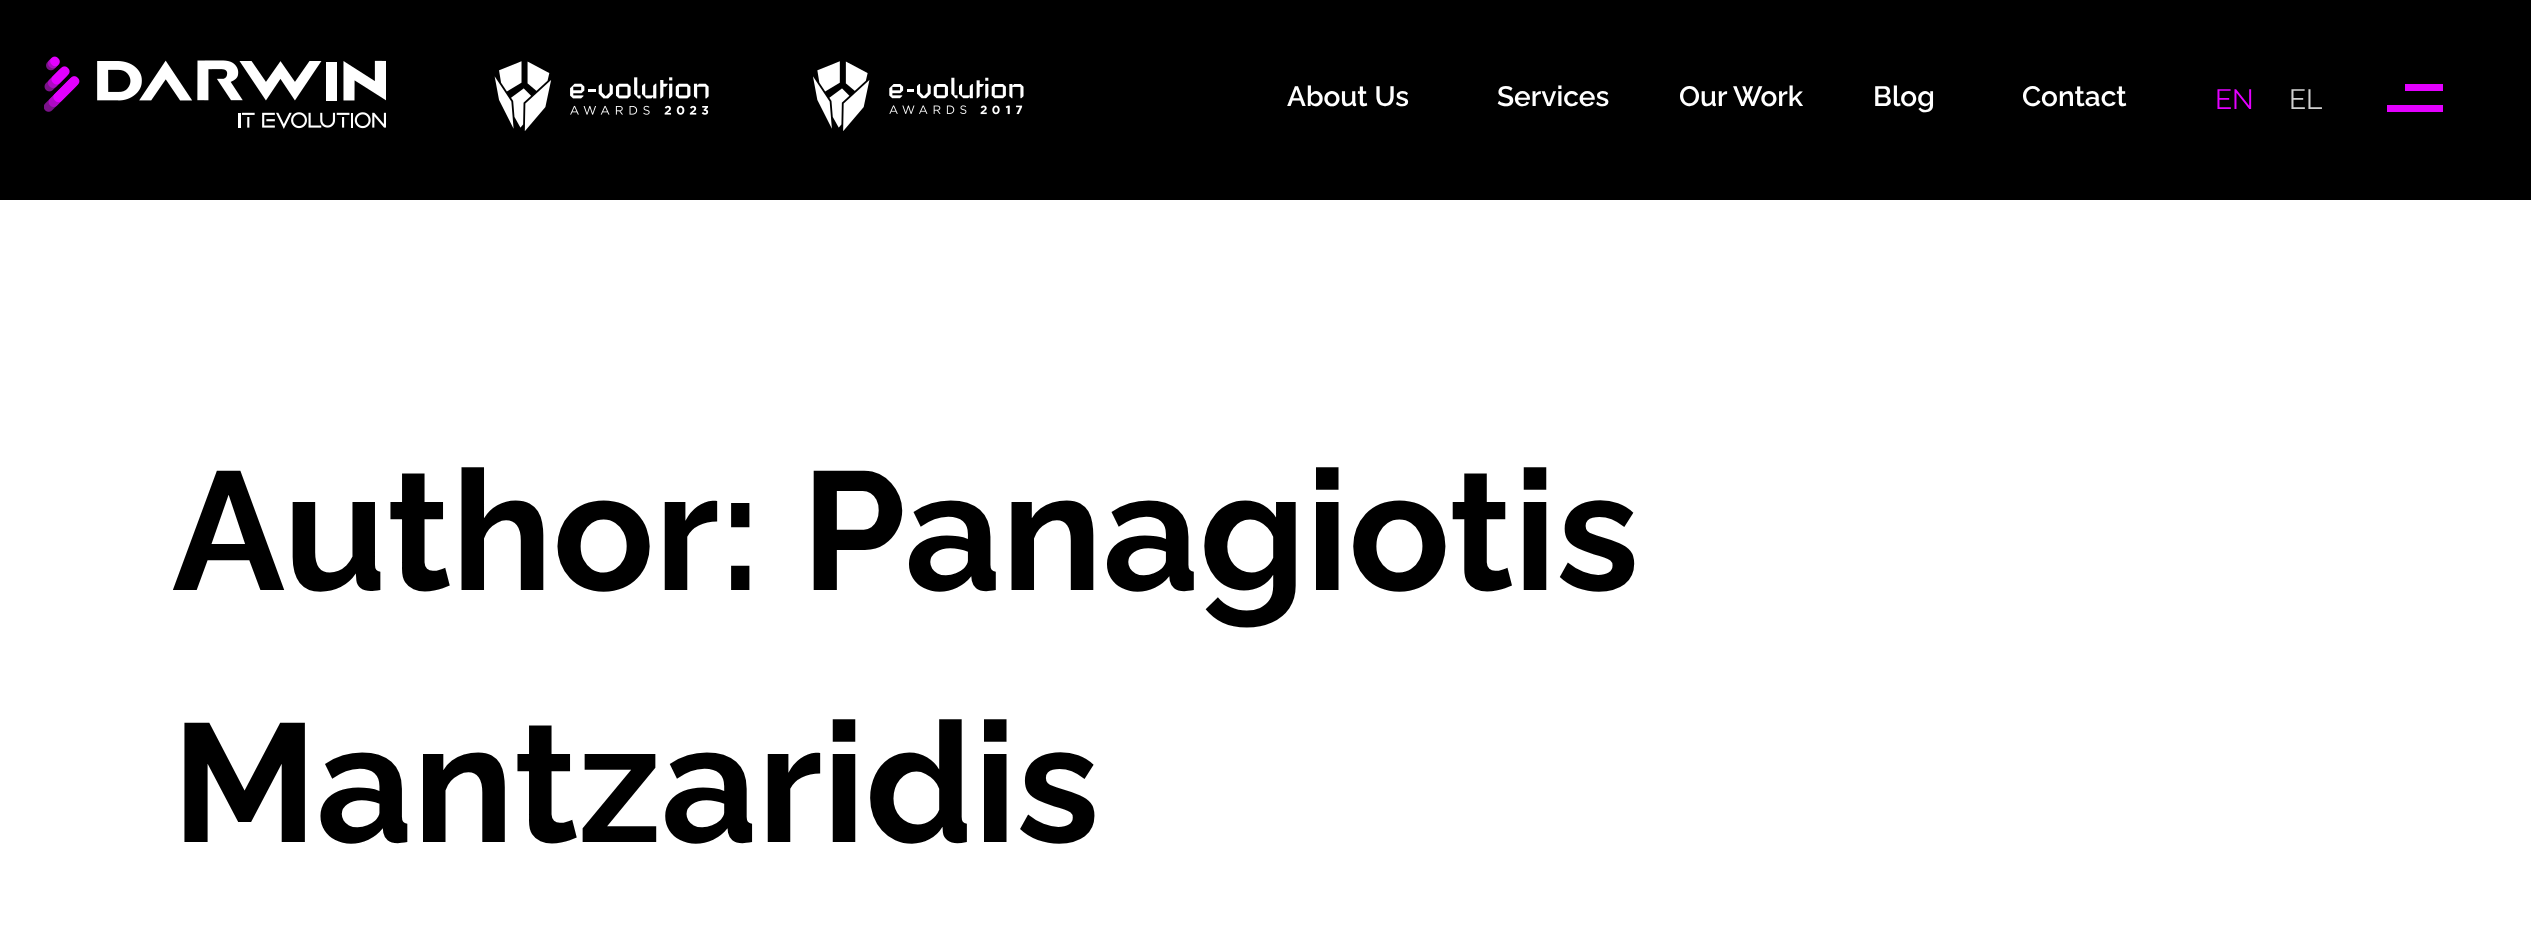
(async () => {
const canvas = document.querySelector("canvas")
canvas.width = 2531
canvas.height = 944
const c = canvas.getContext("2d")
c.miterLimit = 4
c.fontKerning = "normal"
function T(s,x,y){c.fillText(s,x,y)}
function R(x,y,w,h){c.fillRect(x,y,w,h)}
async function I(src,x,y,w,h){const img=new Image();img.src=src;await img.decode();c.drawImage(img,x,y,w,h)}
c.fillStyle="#fff"
R(0,0,2531,944)
c.fillStyle="#000"
R(0,0,2531,200)
await I("1.png",44,56,342,73)
await I("2.png",494,61,215,70)
await I("3.png",813,61,211,70)
c.font="600 28px Raleway"
c.fillStyle="#fff"
T("About Us",1287,106)
T("Services",1497,106)
T("Our Work",1679,106)
T("Blog",1873,106)
T("Contact",2022,106)
c.font="28px Raleway"
c.fillStyle="#e300ff"
T("EN",2215,109)
c.fillStyle="#d0d0d0"
T("EL",2289,109)
c.fillStyle="#e300ff"
R(2405,84,38,7)
R(2387,105,56,7)
c.font="bold 168px Raleway"
c.fillStyle="#000"
T("Author: Panagiotis",172,590)
T("Mantzaridis",172,842)
})()
